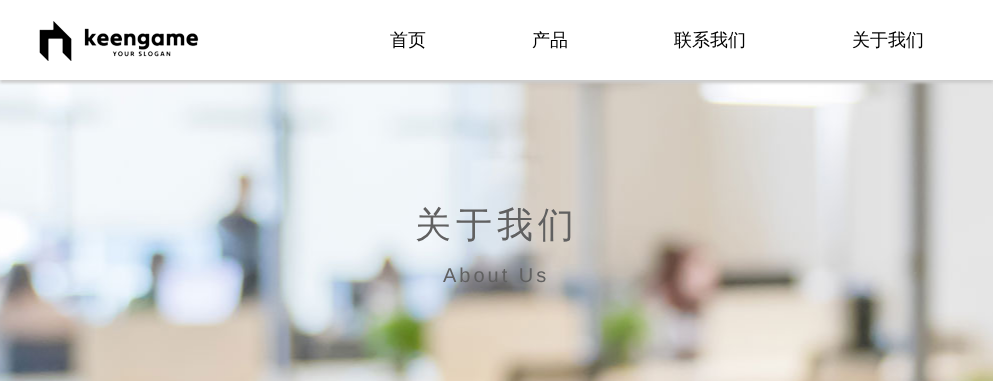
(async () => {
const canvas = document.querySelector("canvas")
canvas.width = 993
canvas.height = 381
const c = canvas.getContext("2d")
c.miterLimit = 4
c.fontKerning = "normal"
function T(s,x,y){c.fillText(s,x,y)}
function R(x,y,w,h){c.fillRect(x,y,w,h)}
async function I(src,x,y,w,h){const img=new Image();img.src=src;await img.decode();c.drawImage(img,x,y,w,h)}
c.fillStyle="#fff"
R(0,0,993,381)
await I("2.png",0,80,993,301)
c.save()
c.beginPath()
c.rect(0,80,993,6)
c.clip()
c.fillStyle="#ccc"
c.filter="blur(1.5px)"
c.beginPath()
c.rect(0,3,993,80)
c.fill()
c.filter="none"
c.restore()
await I("1.png",39,21,160,40)
c.font="500 18px WenQuanYi Zen Hei"
c.fillStyle="#000"
T("首页",390,46)
T("产品",532,46)
T("联系我们",674,46)
T("关于我们",852,46)
c.letterSpacing="5px"
c.font="500 36px WenQuanYi Zen Hei"
c.fillStyle="#606060"
T("关于我们",415,237)
c.letterSpacing="3px"
c.font="20px Liberation Sans"
T("About Us",443,282)
})()
